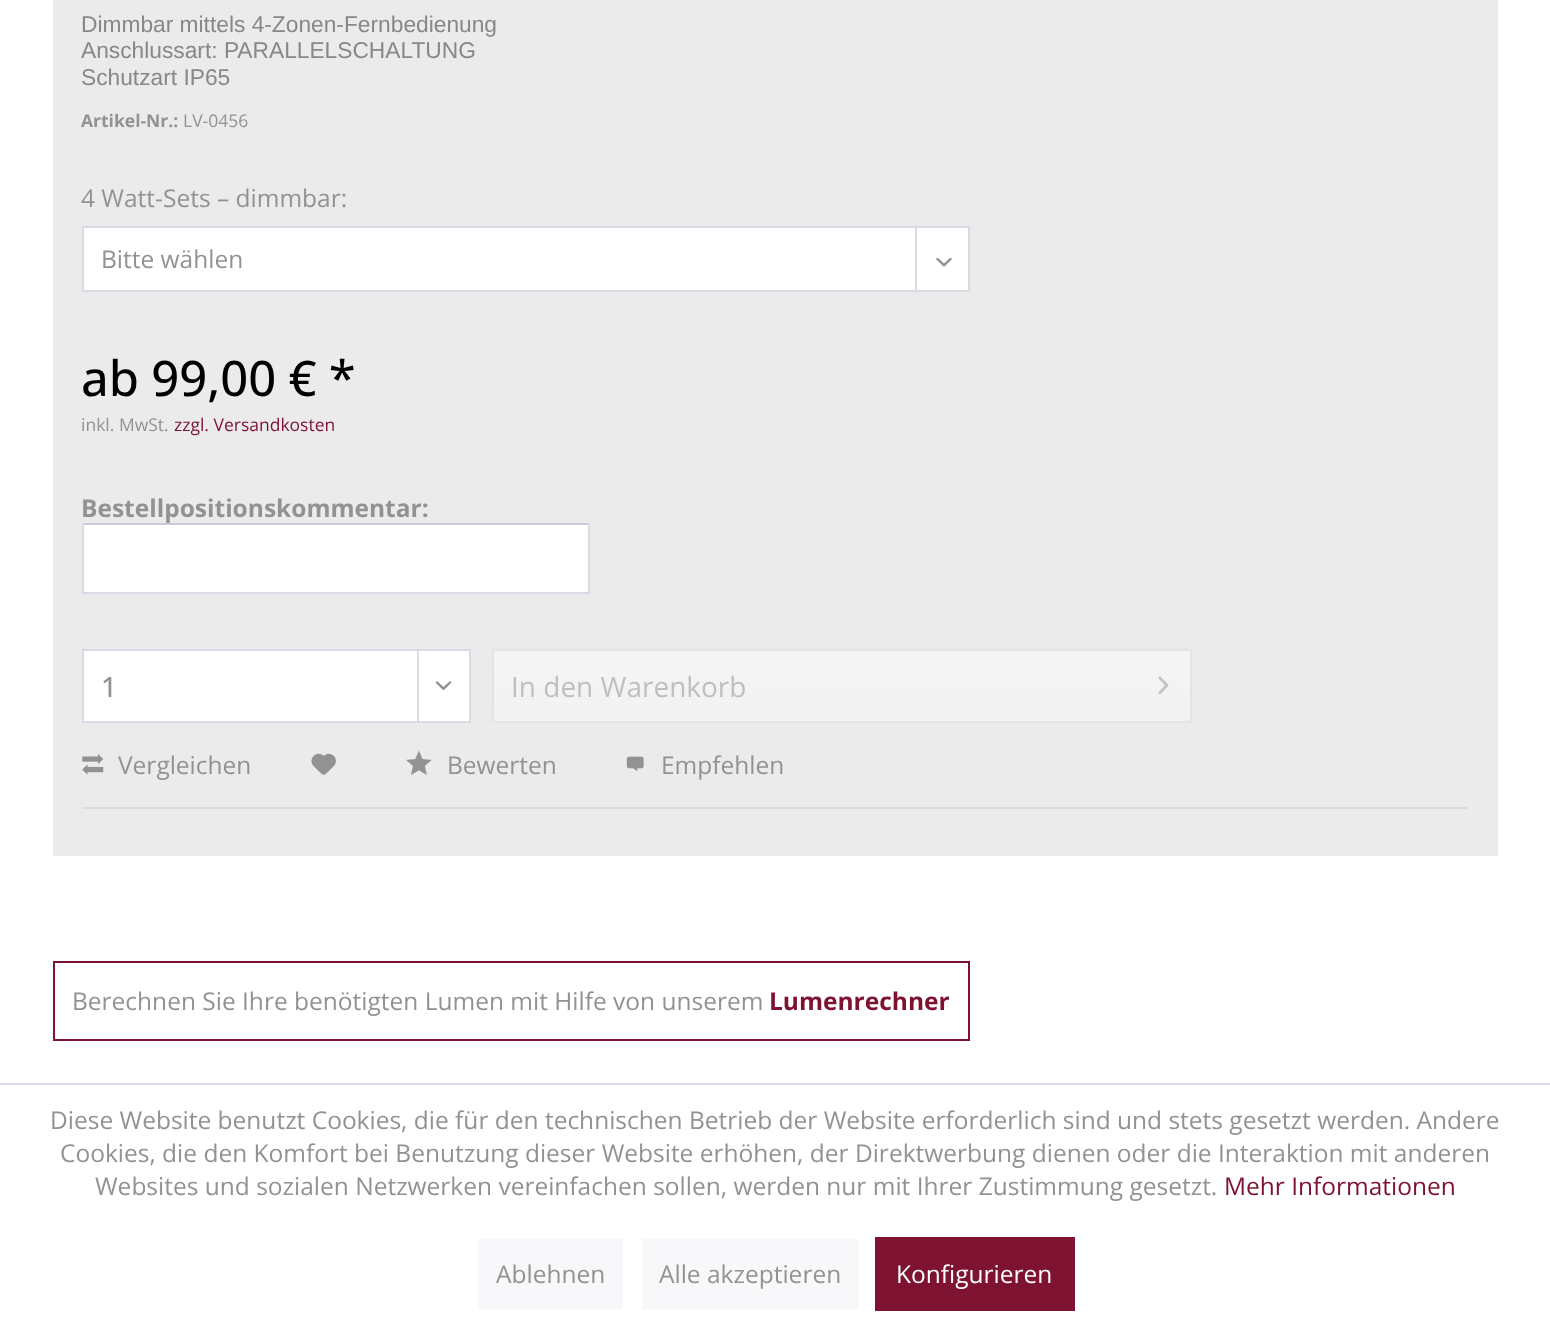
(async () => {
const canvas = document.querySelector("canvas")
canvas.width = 1550
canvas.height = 1328
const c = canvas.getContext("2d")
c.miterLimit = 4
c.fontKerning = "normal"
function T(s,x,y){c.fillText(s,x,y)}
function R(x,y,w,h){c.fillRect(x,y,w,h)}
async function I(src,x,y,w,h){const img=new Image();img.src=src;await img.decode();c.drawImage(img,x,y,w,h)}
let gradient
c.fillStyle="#fff"
R(0,0,1550,1328)
c.fillStyle="#ebebeb"
R(53,0,1445,856)
c.font="22.75px Liberation Sans"
c.fillStyle="#888"
T("Dimmbar mittels 4-Zonen-Fernbedienung",81,32)
T("Anschlussart: PARALLELSCHALTUNG",81,58)
T("Schutzart IP65",81,85)
c.font="bold 17.5px Open Sans"
c.fillStyle="#929292"
T("Artikel-Nr.:",81,127)
c.font="17.5px Open Sans"
T("LV-0456",183,127)
c.font="24.5px Open Sans"
T("4 Watt-Sets – dimmbar:",81,207)
c.fillStyle="#fff"
c.beginPath()
c.rect(83,227,886,64)
c.fill()
c.strokeStyle="#dadae5"
c.lineWidth=2
c.stroke()
c.fillStyle="#929292"
T("Bitte wählen",101,268)
c.fillStyle="#dadae5"
R(915,228,2,63)
await I("1.png",936,257,16,10)
c.wordSpacing="-0.5px"
c.font="500 49px Open Sans"
c.fillStyle="#000"
T("ab 99,00 € *",81,396)
c.wordSpacing="0px"
c.font="17.5px Open Sans"
c.fillStyle="#929292"
T("inkl. MwSt.",81,431)
c.fillStyle="#7d1231"
T("zzgl. Versandkosten",174,431)
c.font="bold 24.5px Open Sans"
c.fillStyle="#929292"
T("Bestellpositionskommentar:",81,517)
c.fillStyle="#fff"
R(84,525,504,67)
c.fillStyle="#cbcbdb"
R(82,523,508,2)
c.fillStyle="#dadae5"
R(588,523,2,70)
R(82,592,508,2)
R(82,523,2,70)
c.fillStyle="#fff"
c.beginPath()
c.rect(83,650,387,72)
c.fill()
c.stroke()
c.font="500 28px Open Sans"
c.fillStyle="#929292"
T("1",101,697)
c.fillStyle="#dadae5"
R(417,651,2,70)
await I("2.png",435,681,17,9)
gradient = c.createLinearGradient(842,651,842,721)
gradient.addColorStop(0,"#f5f5f5")
gradient.addColorStop(1,"#f2f2f3")
c.fillStyle = gradient
R(494,651,696,70)
c.strokeStyle="#e3e3e8"
c.strokeRect(493,650,698,72)
c.font="28px Open Sans"
c.fillStyle="#bfbfbf"
T("In den Warenkorb",511,697)
await I("3.png",1158,676,11,18)
c.fillStyle="#dadae5"
R(82,807,1386,2)
await I("4.png",82,754,22,21)
c.font="24.5px Open Sans"
c.fillStyle="#929292"
T("Vergleichen",118,774)
await I("5.png",311,753,25,22)
await I("6.png",406,750,26,25)
T("Bewerten",447,774)
await I("7.png",626,756,18,16)
T("Empfehlen",661,774)
c.strokeStyle="#7d1231"
c.strokeRect(54,962,915,78)
T("Berechnen Sie Ihre benötigten Lumen mit Hilfe von unserem",72,1010)
c.font="bold 24.5px Open Sans"
c.fillStyle="#7d1231"
T("Lumenrechner",769,1010)
c.fillStyle="#dadae5"
R(0,1083,1550,2)
c.font="24.5px Open Sans"
c.fillStyle="#929292"
T("Diese Website benutzt Cookies, die für den technischen Betrieb der Website erforderlich sind und stets gesetzt werden. Andere",50,1129)
T("Cookies, die den Komfort bei Benutzung dieser Website erhöhen, der Direktwerbung dienen oder die Interaktion mit anderen",60,1162)
T("Websites und sozialen Netzwerken vereinfachen sollen, werden nur mit Ihrer Zustimmung gesetzt.",95,1195)
c.fillStyle="#7d1231"
T("Mehr Informationen",1224,1195)
c.fillStyle="#f8f8fa"
R(478,1239,145,70)
c.fillStyle="#929292"
T("Ablehnen",496,1283)
c.fillStyle="#f8f8fa"
R(642,1239,217,70)
c.fillStyle="#929292"
T("Alle akzeptieren",659,1283)
c.fillStyle="#7d1231"
R(875,1237,200,74)
c.fillStyle="#fff"
T("Konfigurieren",896,1283)
})()
